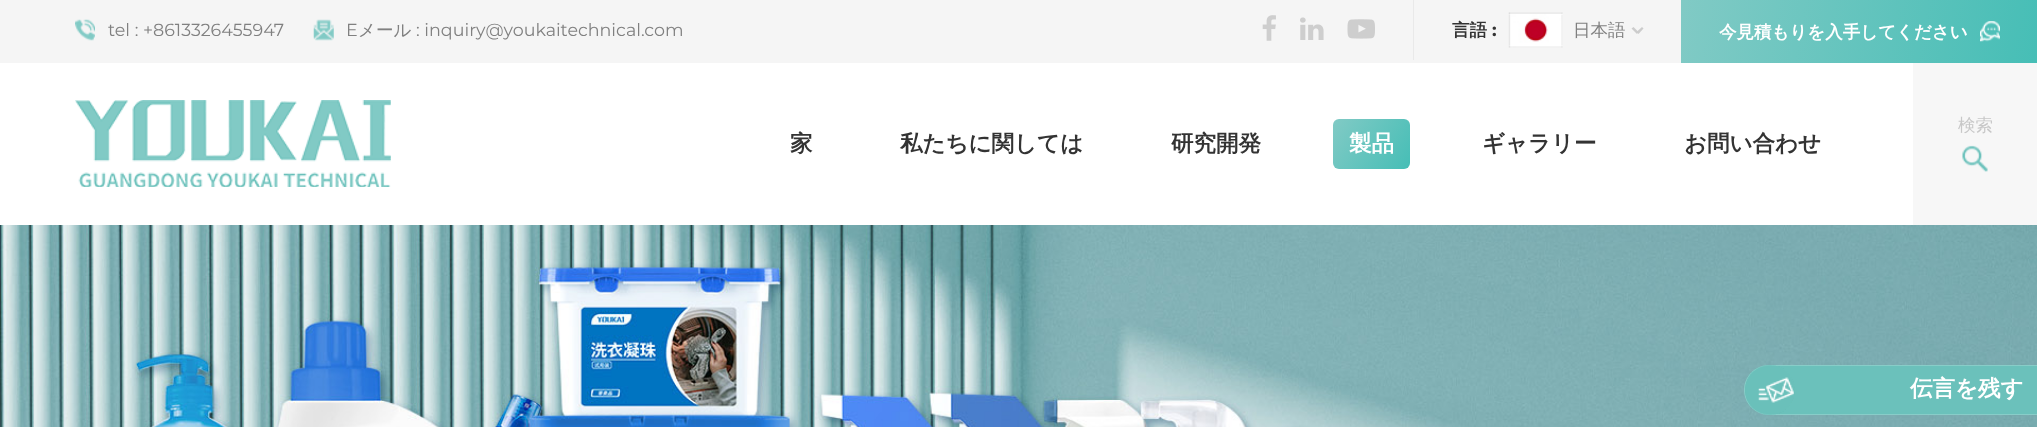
(async () => {
const canvas = document.querySelector("canvas")
canvas.width = 2037
canvas.height = 427
const c = canvas.getContext("2d")
c.miterLimit = 4
c.fontKerning = "normal"
function T(s,x,y){c.fillText(s,x,y)}
function R(x,y,w,h){c.fillRect(x,y,w,h)}
function Q(x,y,w,h,r){c.beginPath();c.roundRect(x,y,w,h,r);c.fill()}
async function I(src,x,y,w,h){const img=new Image();img.src=src;await img.decode();c.drawImage(img,x,y,w,h)}
let gradient, path
c.fillStyle="#fff"
R(0,0,2037,427)
c.fillStyle="#f5f5f5"
R(0,0,1681,63)
await I("1.png",75,19,20,22)
c.font="17.5px Montserrat"
c.fillStyle="#808080"
T("tel : +8613326455947",108,36)
await I("2.png",313,19,21,22)
T("E",346,36)
c.font="500 17.5px WenQuanYi Zen Hei"
T("メール",358,36)
c.font="17.5px Montserrat"
T(": inquiry@youkaitechnical.com",416,36)
await I("3.png",1262,15,14,26)
await I("4.png",1300,17,24,23)
await I("5.png",1347,19,28,20)
c.fillStyle="#e9e9e9"
R(1413,0,1,60)
c.font="bold 17.5px WenQuanYi Zen Hei"
c.fillStyle="#333"
T("言語",1452,36)
c.font="bold 17.5px Montserrat"
T(":",1492,36)
await I("6.png",1508,12,55,36)
c.font="500 17.5px WenQuanYi Zen Hei"
c.fillStyle="#808080"
T("日本語",1573,36)
c.fillStyle="#ccc"
path = new Path2D("M1636.5 32l5.5-5l1.5 1.5l-5 5.5z")
c.fill(path)
path = new Path2D("M1633.5 27l5 5l-1.5 2l-5.5-5.5z")
c.fill(path)
gradient = c.createLinearGradient(1681,0,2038,63)
gradient.addColorStop(0,"#81cac5")
gradient.addColorStop(1,"#46beb6")
c.fillStyle = gradient
R(1681,0,356,63)
c.font="bold 17.5px WenQuanYi Zen Hei"
c.fillStyle="#fff"
T("今見積もりを入手してください",1719,38)
await I("7.png",1980,21,20,21)
await I("8.png",75,100,316,87)
c.fillStyle="#f7f7f7"
R(1913,63,124,162)
c.font="500 17.5px WenQuanYi Zen Hei"
c.fillStyle="#c8c8c8"
T("検索",1958,131)
await I("9.png",1962,145,26,27)
c.font="bold 22.5px WenQuanYi Zen Hei"
c.fillStyle="#333"
T("家",790,151)
T("私たちに関しては",900,151)
T("研究開発",1171,151)
gradient = c.createLinearGradient(1333,119,1410,169)
gradient.addColorStop(0,"#81cac5")
gradient.addColorStop(1,"#46beb6")
c.fillStyle = gradient
Q(1333,119,77,50,6)
c.fillStyle="#fff"
T("製品",1349,151)
c.fillStyle="#333"
T("ギャラリー",1482,151)
T("お問い合わせ",1684,151)
await I("10.png",0,225,2037,202)
c.fillStyle="#6bc1bb"
path = new Path2D("M1769 365h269v50h-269c-14 0-25-11-25-25c0-14 11-25 25-25z")
c.fill(path)
path = new Path2D("M1769 365.5h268.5v49h-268.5c-13.5 0-24.5-11-24.5-24.5c0-13.5 11-24.5 24.5-24.5z")
c.strokeStyle="#ffffff33"
c.stroke(path)
c.fillStyle="#6bc1bb4d"
c.beginPath()
c.arc(1770,390,25,0,7)
c.fill()
c.beginPath()
c.arc(1770,390,25,0,7)
c.fill()
c.beginPath()
c.arc(1770,390,25,0,7)
c.fill()
c.fillStyle="#fff"
T("伝言を残す",1910,396)
await I("11.png",1758,377,36,26)
})()
